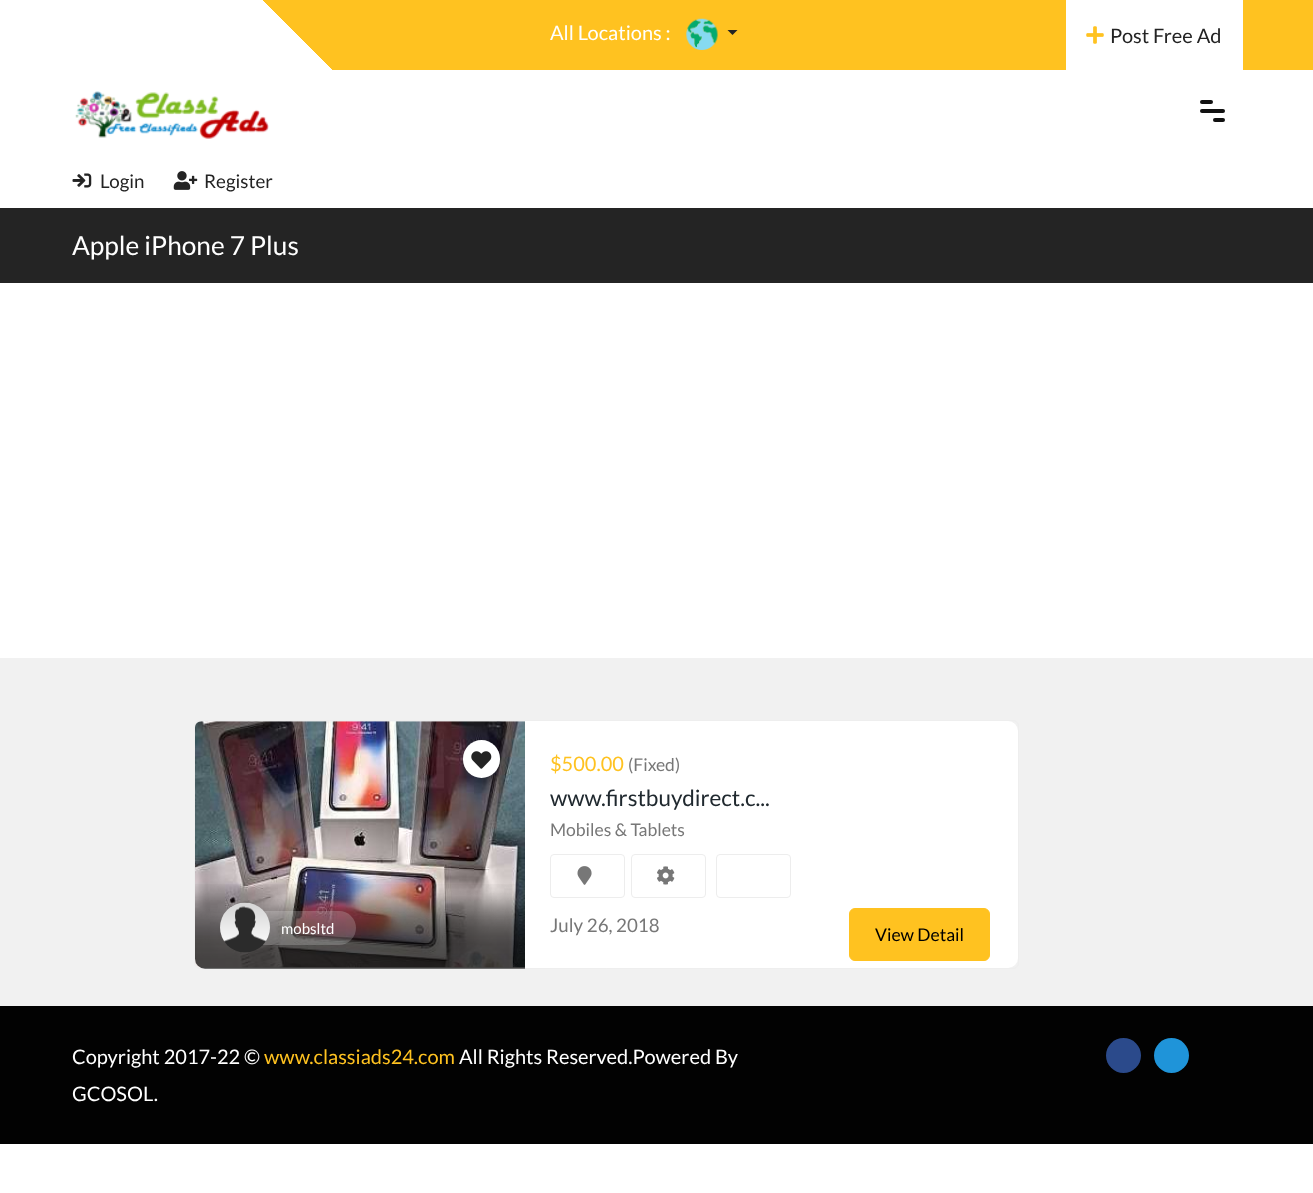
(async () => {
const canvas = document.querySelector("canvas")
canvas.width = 1313
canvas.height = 1193
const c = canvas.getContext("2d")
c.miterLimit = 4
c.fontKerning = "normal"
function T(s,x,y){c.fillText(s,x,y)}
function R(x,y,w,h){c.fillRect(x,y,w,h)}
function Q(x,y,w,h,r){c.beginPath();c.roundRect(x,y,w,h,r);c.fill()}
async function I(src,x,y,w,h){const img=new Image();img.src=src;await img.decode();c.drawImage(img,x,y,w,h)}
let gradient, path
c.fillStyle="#fff"
R(0,0,1313,1193)
gradient = c.createLinearGradient(311,381,1003,-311)
gradient.addColorStop(.24,"#fff")
gradient.addColorStop(.24,"#ffc220")
c.fillStyle = gradient
R(263,0,1050,70)
c.font="20px Lato"
c.fillStyle="#fff"
T("All Locations :",550,40)
await I("1.png",686,18,32,32)
c.fillStyle="#242424"
path = new Path2D("M727.5 30h10l-5 5z")
c.fill(path)
c.fillStyle="#fff"
R(1066,0,177,70)
await I("2.png",1086,26,18,18)
c.fillStyle="#232323"
T("Post Free Ad",1110,43)
await I("3.png",75,91,194,48)
c.fillStyle="#111"
Q(1200,100,13,4,2)
Q(1200,109,25,4,2)
Q(1213,118,12,4,2)
await I("4.png",72,173,20,15)
c.font="18.75px Lato"
c.fillStyle="#232323"
T("Login",100,188)
await I("5.png",173,171,25,19)
T("Register",204,188)
c.fillStyle="#242424"
R(0,208,1313,75)
c.font="26.25px Lato"
c.fillStyle="#fff"
T("Apple iPhone 7 Plus",72,255)
c.fillStyle="#f1f1f1"
R(0,658,1313,348)
c.beginPath()
c.roundRect(194.5,720.5,824,248,5.5)
c.strokeStyle="#eee"
c.stroke()
await I("6.png",195,721,330,247)
c.fillStyle="#fff"
Q(463,740,37,38,18.5)
await I("7.png",471,751,21,18)
await I("8.png",195,884,330,85)
c.fillStyle="#ffffff33"
c.beginPath()
c.roundRect(258,911,98,34,[0,17,17,0])
c.fill()
await I("9.png",220,902,50,51)
c.font="15px Lato"
c.fillStyle="#fff"
T("mobsltd",281,934)
c.beginPath()
c.roundRect(525,721,493,247,[0,10,10,0])
c.fill()
c.font="20px Lato"
c.fillStyle="#ffc220"
T("$500.00",550,771)
c.font="17.5px Lato"
c.fillStyle="#777"
T("(Fixed)",628,771)
c.font="22.5px Lato"
c.fillStyle="#20292f"
T("www.firstbuydirect.c...",550,806)
c.font="17.5px Lato"
c.fillStyle="#777"
T("Mobiles & Tablets",550,836)
c.beginPath()
c.roundRect(550.5,854.5,74,43,3.5)
c.strokeStyle="#ededed"
c.stroke()
await I("10.png",577,866,15,19)
c.beginPath()
c.roundRect(631.5,854.5,74,43,3.5)
c.stroke()
await I("11.png",657,866,18,19)
c.beginPath()
c.roundRect(716.5,854.5,74,43,3.5)
c.stroke()
c.font="18.75px Lato"
T("July 26, 2018",550,932)
c.fillStyle="#ffc220"
c.beginPath()
c.roundRect(849.5,908.5,140,52,5.5)
c.fill()
c.strokeStyle="#ffc220"
c.stroke()
c.font="17.5px Lato"
c.fillStyle="#000"
T("View Detail",875,941)
c.fillStyle="#020202"
R(0,1006,1313,138)
c.font="20px Lato"
c.fillStyle="#fff"
T("Copyright 2017-22 ©",72,1064)
c.fillStyle="#ffc220"
T("www.classiads24.com",264,1064)
c.fillStyle="#fff"
T("All Rights Reserved.Powered By",459,1064)
T("GCOSOL.",72,1101)
c.fillStyle="#2b4a8b"
c.beginPath()
c.arc(1123.5,1055.5,17.5,0,7)
c.fill()
c.fillStyle="#1f94d9"
c.beginPath()
c.arc(1171.5,1055.5,17.5,0,7)
c.fill()
})()
